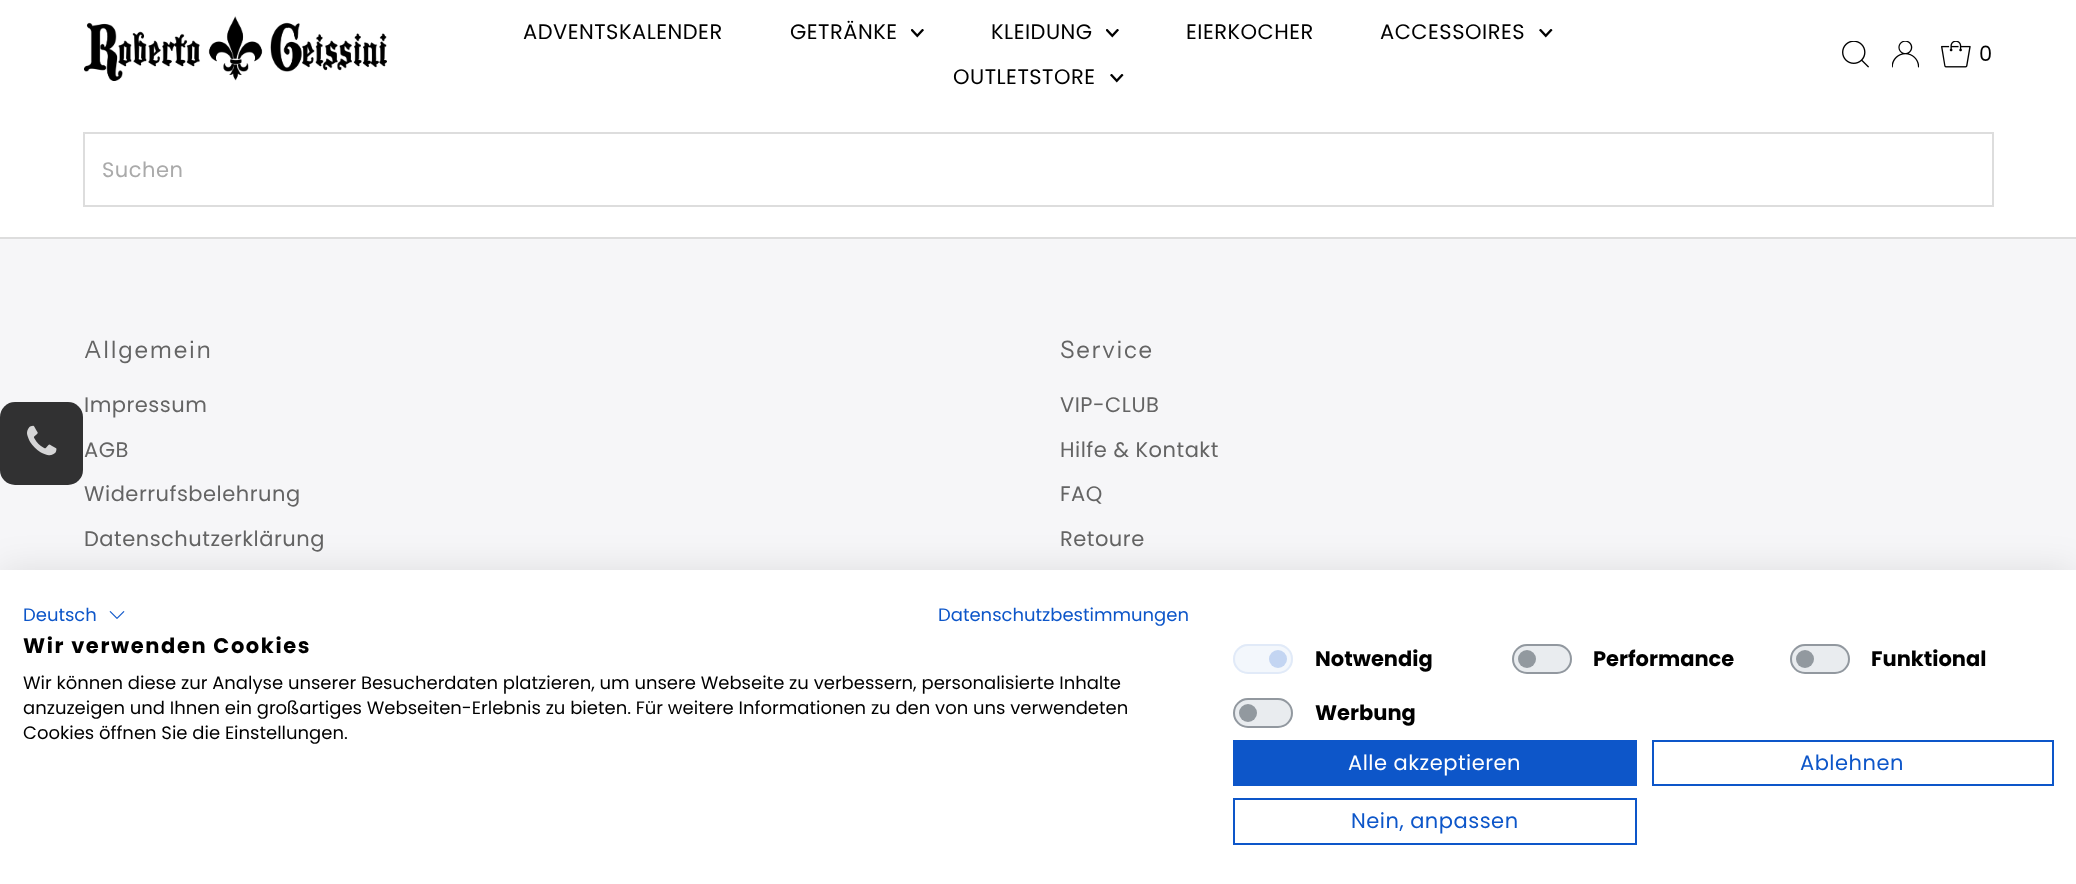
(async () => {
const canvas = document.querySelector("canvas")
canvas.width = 2076
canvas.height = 884
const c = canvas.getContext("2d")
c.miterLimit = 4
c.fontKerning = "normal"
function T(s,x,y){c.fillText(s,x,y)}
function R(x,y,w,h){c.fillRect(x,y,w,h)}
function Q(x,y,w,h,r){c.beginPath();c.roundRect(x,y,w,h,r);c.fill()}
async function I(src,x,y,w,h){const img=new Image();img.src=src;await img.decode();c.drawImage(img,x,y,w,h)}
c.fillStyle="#fff"
R(0,0,2076,884)
c.fillStyle="#f6f6f8"
R(0,239,2076,331)
c.fillStyle="#313132"
Q(0,402,83,83,15)
await I("1.png",27,425,30,31)
await I("2.png",84,16,303,65)
c.letterSpacing="0.5px"
c.font="21px Poppins"
c.fillStyle="#000"
T("ADVENTSKALENDER",523,39)
T("GETRÄNKE",790,39)
await I("3.png",911,29,13,9)
T("KLEIDUNG",991,39)
await I("3.png",1106,29,13,9)
T("EIERKOCHER",1186,39)
T("ACCESSOIRES",1380,39)
await I("4.png",1539,29,14,9)
T("OUTLETSTORE",953,84)
await I("4.png",1110,74,14,9)
await I("5.png",1842,41,27,27)
await I("6.png",1892,41,27,27)
await I("7.png",1941,41,30,27)
T("0",1979,61)
c.strokeStyle="#ddd"
c.lineWidth=2
c.strokeRect(84,133,1909,73)
c.fillStyle="#aaa"
T("Suchen",102,177)
c.fillStyle="#ddd"
R(0,237,2076,2)
c.letterSpacing="1.75px"
c.font="24px Instrument Sans"
c.fillStyle="#646464"
T("Allgemein",84,358)
c.letterSpacing="0.5px"
c.font="21px Poppins"
T("Impressum",84,412)
T("AGB",84,457)
T("Widerrufsbelehrung",84,501)
T("Datenschutzerklärung",84,546)
c.letterSpacing="1.75px"
c.font="24px Instrument Sans"
T("Service",1060,358)
c.letterSpacing="0.5px"
c.font="21px Poppins"
T("VIP-CLUB",1060,412)
T("Hilfe & Kontakt",1060,457)
T("FAQ",1060,501)
T("Retoure",1060,546)
c.fillStyle="#0000001a"
c.filter="blur(18px)"
c.beginPath()
c.rect(0,570,2076,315)
c.fill()
c.filter="none"
c.fillStyle="#fff"
R(0,570,2076,314)
c.letterSpacing="0px"
c.font="18px Poppins"
c.fillStyle="#0d56c9"
T("Deutsch",23,621)
await I("8.png",109,611,16,8)
T("Datenschutzbestimmungen",938,621)
c.letterSpacing="1.6px"
c.font="bold 21px Poppins"
c.fillStyle="#000"
T("Wir verwenden Cookies",23,653)
c.letterSpacing="0px"
c.font="18px Poppins"
T("Wir können diese zur Analyse unserer Besucherdaten platzieren, um unsere Webseite zu verbessern, personalisierte Inhalte",23,689)
T("anzuzeigen und Ihnen ein großartiges Webseiten-Erlebnis zu bieten. Für weitere Informationen zu den von uns verwendeten",23,714)
T("Cookies öffnen Sie die Einstellungen.",23,739)
c.fillStyle="#f3f7fc"
Q(1233,644,60,30,15)
c.fillStyle="#c3d5f2"
c.beginPath()
c.arc(1278,659,9,0,7)
c.fill()
c.beginPath()
c.roundRect(1234,645,58,28,14)
c.strokeStyle="#e1eaf8"
c.stroke()
c.font="bold 21px Poppins"
c.fillStyle="#000"
T("Notwendig",1315,666)
c.fillStyle="#e9ecef"
Q(1512,644,60,30,15)
c.fillStyle="#92999f"
c.beginPath()
c.arc(1527,659,9,0,7)
c.fill()
c.beginPath()
c.roundRect(1513,645,58,28,14)
c.strokeStyle="#6c757db3"
c.stroke()
c.fillStyle="#000"
T("Performance",1593,666)
c.fillStyle="#e9ecef"
Q(1790,644,60,30,15)
c.fillStyle="#92999f"
c.beginPath()
c.arc(1805,659,9,0,7)
c.fill()
c.beginPath()
c.roundRect(1791,645,58,28,14)
c.stroke()
c.fillStyle="#000"
T("Funktional",1871,666)
c.fillStyle="#e9ecef"
Q(1233,698,60,30,15)
c.fillStyle="#92999f"
c.beginPath()
c.arc(1248,713,9,0,7)
c.fill()
c.beginPath()
c.roundRect(1234,699,58,28,14)
c.stroke()
c.fillStyle="#000"
T("Werbung",1315,720)
c.fillStyle="#0d56c9"
R(1233,740,404,46)
c.letterSpacing="0.5px"
c.font="21px Poppins"
c.fillStyle="#fff"
T("Alle akzeptieren",1348,770)
c.strokeStyle="#0d56c9"
c.strokeRect(1653,741,400,44)
c.fillStyle="#0d56c9"
T("Ablehnen",1800,770)
c.strokeRect(1234,799,402,45)
T("Nein, anpassen",1351,828)
})()
